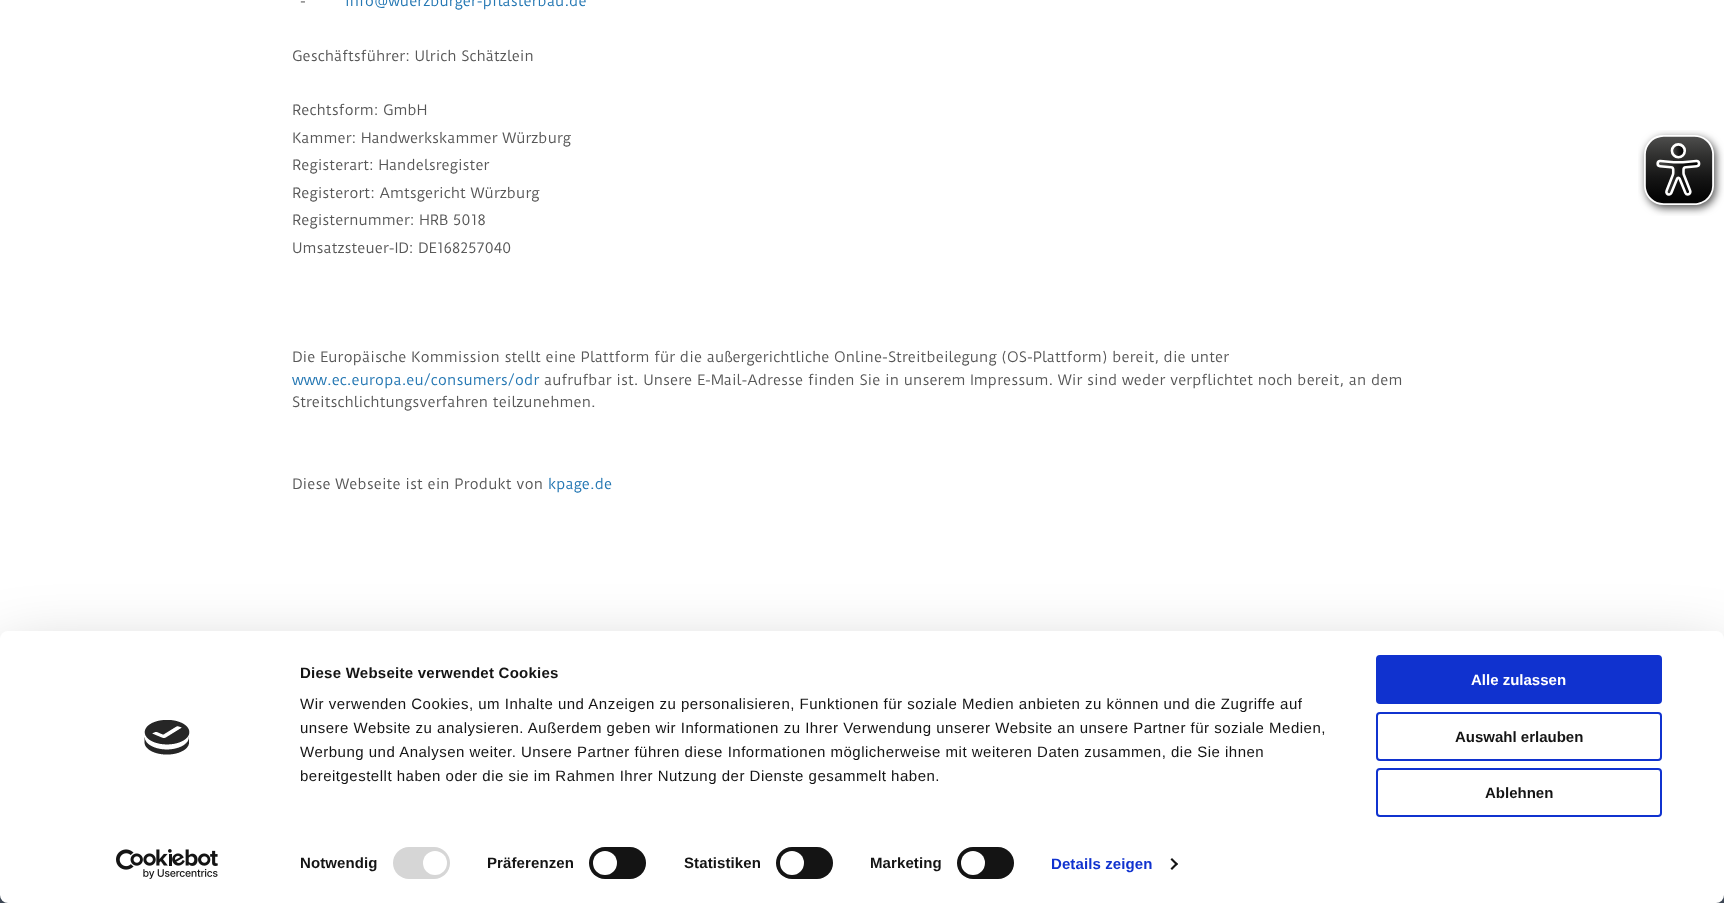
(async () => {
const canvas = document.querySelector("canvas")
canvas.width = 1724
canvas.height = 903
const c = canvas.getContext("2d")
c.miterLimit = 4
c.fontKerning = "normal"
function T(s,x,y){c.fillText(s,x,y)}
function R(x,y,w,h){c.fillRect(x,y,w,h)}
function Q(x,y,w,h,r){c.beginPath();c.roundRect(x,y,w,h,r);c.fill()}
async function I(src,x,y,w,h){const img=new Image();img.src=src;await img.decode();c.drawImage(img,x,y,w,h)}
let path
c.fillStyle="#fff"
R(0,0,1724,903)
c.font="14px Duru Sans"
c.fillStyle="#575757"
T("-",300,6)
c.fillStyle="#2477b3"
T("info@wuerzburger-pflasterbau.de",345,6)
c.fillStyle="#575757"
T("Geschäftsführer: Ulrich Schätzlein",292,61)
T("Rechtsform: GmbH",292,115)
T("Kammer: Handwerkskammer Würzburg",292,143)
T("Registerart: Handelsregister",292,170)
T("Registerort: Amtsgericht Würzburg",292,198)
T("Registernummer: HRB 5018",292,225)
T("Umsatzsteuer-ID: DE168257040",292,253)
T("Die Europäische Kommission stellt eine Plattform für die außergerichtliche Online-Streitbeilegung (OS-Plattform) bereit, die unter",292,362)
c.fillStyle="#2477b3"
T("www.ec.europa.eu/consumers/odr",292,385)
c.fillStyle="#575757"
T("aufrufbar ist. Unsere E-Mail-Adresse finden Sie in unserem Impressum. Wir sind weder verpflichtet noch bereit, an dem",544,385)
T("Streitschlichtungsverfahren teilzunehmen.",292,407)
T("Diese Webseite ist ein Produkt von",292,489)
c.fillStyle="#2477b3"
T("kpage.de",548,489)
c.fillStyle="#465160"
R(0,895,1724,8)
await I("1.png",1638,130,86,86)
c.fillStyle="#0000004d"
c.filter="blur(35px)"
c.beginPath()
c.roundRect(0,661,1724,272,8)
c.fill()
c.filter="none"
c.fillStyle="#fff"
Q(0,631,1724,272,8)
await I("2.png",144,720,46,35)
await I("3.png",116,849,102,30)
c.letterSpacing="0.25px"
c.font="bold 15px Liberation Sans"
c.fillStyle="#141414"
T("Diese Webseite verwendet Cookies",300,678)
c.letterSpacing="0.5px"
c.font="15px Liberation Sans"
T("Wir verwenden Cookies, um Inhalte und Anzeigen zu personalisieren, Funktionen für soziale Medien anbieten zu können und die Zugriffe auf",300,709)
T("unsere Website zu analysieren. Außerdem geben wir Informationen zu Ihrer Verwendung unserer Website an unsere Partner für soziale Medien,",300,733)
T("Werbung und Analysen weiter. Unsere Partner führen diese Informationen möglicherweise mit weiteren Daten zusammen, die Sie ihnen",300,757)
T("bereitgestellt haben oder die sie im Rahmen Ihrer Nutzung der Dienste gesammelt haben.",300,781)
c.letterSpacing="0.1px"
c.font="bold 15px Liberation Sans"
T("Notwendig",300,868)
c.fillStyle="#d6d6d6"
Q(393,847,57,32,16)
c.fillStyle="#fff"
c.beginPath()
c.arc(435,863,12,0,7)
c.fill()
c.fillStyle="#141414"
T("Präferenzen",487,868)
Q(589,847,57,32,16)
c.fillStyle="#fff"
c.beginPath()
c.arc(605,863,12,0,7)
c.fill()
c.fillStyle="#141414"
T("Statistiken",684,868)
Q(776,847,57,32,16)
c.fillStyle="#fff"
c.beginPath()
c.arc(792,863,12,0,7)
c.fill()
c.fillStyle="#141414"
T("Marketing",870,868)
Q(957,847,57,32,16)
c.fillStyle="#fff"
c.beginPath()
c.arc(973,863,12,0,7)
c.fill()
c.fillStyle="#1032cf"
T("Details zeigen",1051,869)
c.fillStyle="#141414"
path = new Path2D("M1172 858l6 6l-1.5 1.5l-6-6z")
c.fill(path)
path = new Path2D("M1176.5 862.5l1.5 1.5l-6 6l-1.5-1.5z")
c.fill(path)
c.fillStyle="#1032cf"
c.beginPath()
c.roundRect(1377,656,284,47,3)
c.fill()
c.strokeStyle="#1032cf"
c.lineWidth=2
c.stroke()
c.letterSpacing="0px"
c.fillStyle="#fff"
T("Alle zulassen",1471,685)
c.beginPath()
c.roundRect(1377,713,284,47,3)
c.stroke()
c.fillStyle="#141414"
T("Auswahl erlauben",1455,742)
c.beginPath()
c.roundRect(1377,769,284,47,3)
c.stroke()
T("Ablehnen",1485,798)
})()
